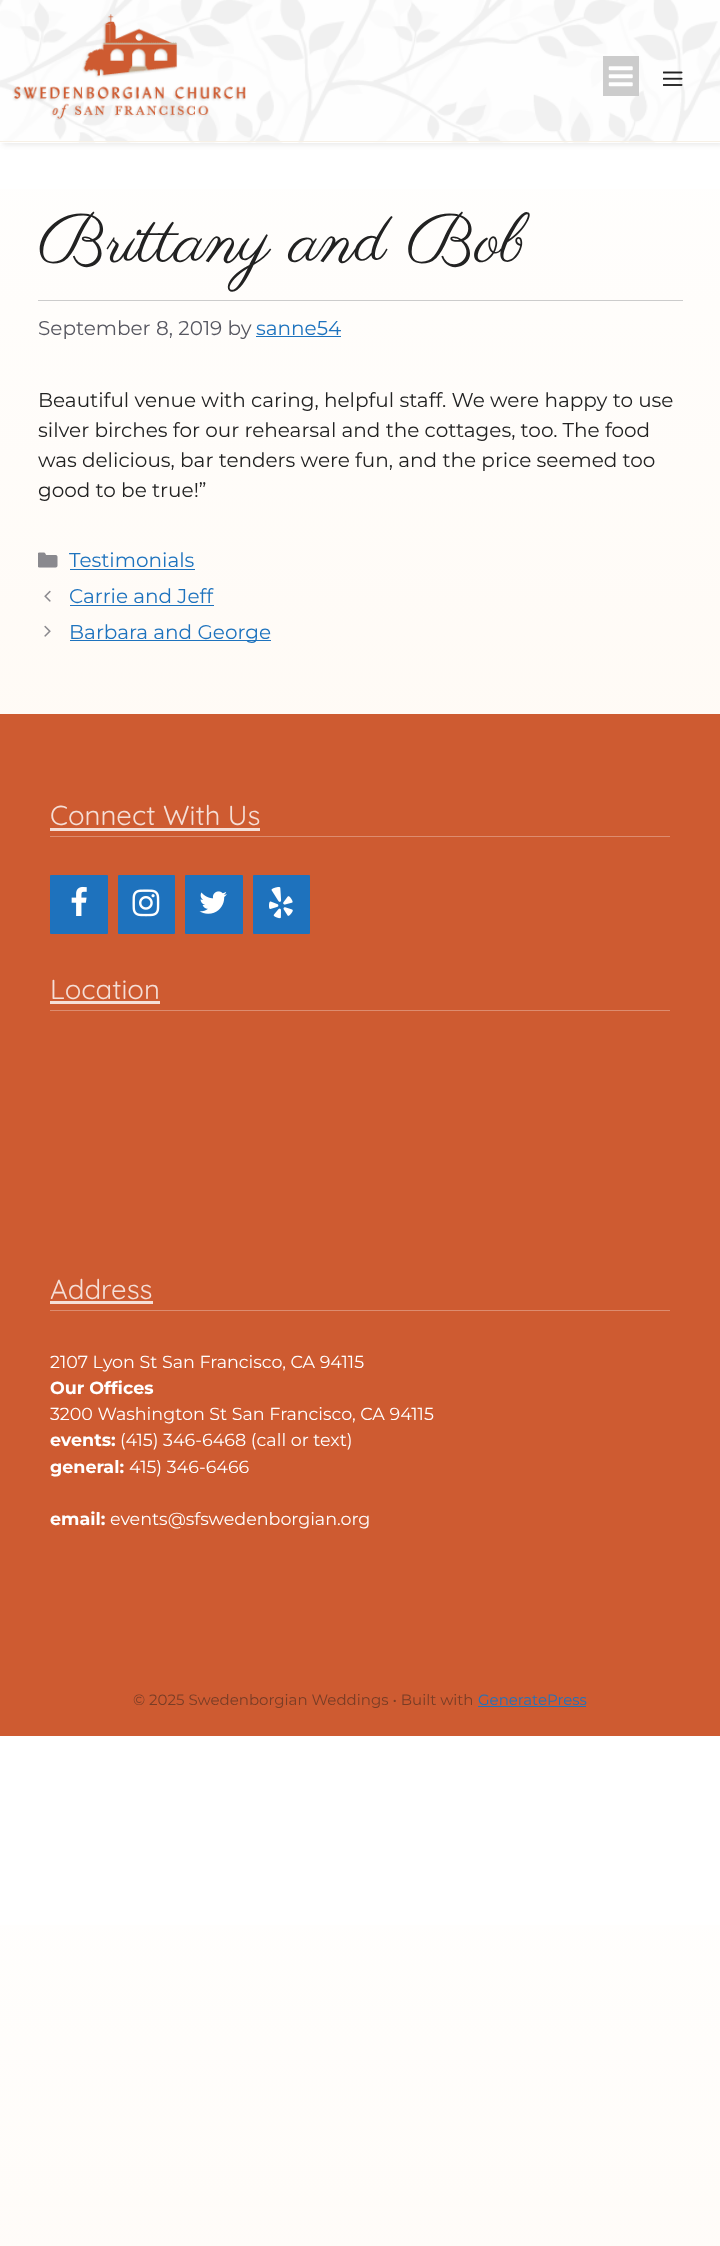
(async () => {
const canvas = document.querySelector("canvas")
canvas.width = 720
canvas.height = 2246
const c = canvas.getContext("2d")
c.miterLimit = 4
c.fontKerning = "normal"
function T(s,x,y){c.fillText(s,x,y)}
function R(x,y,w,h){c.fillRect(x,y,w,h)}
function Q(x,y,w,h,r){c.beginPath();c.roundRect(x,y,w,h,r);c.fill()}
async function I(src,x,y,w,h){const img=new Image();img.src=src;await img.decode();c.drawImage(img,x,y,w,h)}
let gradient
c.fillStyle="#fff"
R(0,0,720,2246)
gradient = c.createLinearGradient(360,1736,360,0)
gradient.addColorStop(0,"#fff4e8")
gradient.addColorStop(1,"#fff")
c.fillStyle = gradient
R(0,189,720,525)
gradient = c.createLinearGradient(360,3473,360,1736)
gradient.addColorStop(0,"#fff4e8")
gradient.addColorStop(1,"#fff")
c.fillStyle = gradient
R(0,1925,720,321)
c.fillStyle="#3232321a"
c.filter="blur(2.5px)"
c.beginPath()
c.rect(3,3,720,142)
c.fill()
c.filter="none"
c.fillStyle="#fff"
R(0,0,720,143)
await I("1.png",0,0,720,143)
c.fillStyle="#f7f0e5"
R(0,141,720,1)
await I("2.png",12,14,234,106)
c.fillStyle="#ccc"
R(603,56,36,40)
await I("3.png",608,66,25,21)
await I("4.png",663,71,20,15)
R(38,300,645,1)
c.font="68.75px Parisienne"
c.fillStyle="#222"
T("Brittany and Bob",38,261)
c.font="20px Montserrat"
c.fillStyle="#575760"
T("September 8, 2019 by",38,335)
c.fillStyle="#1e73be"
T("sanne54",256,335)
R(256,336,85,1)
c.fillStyle="#222"
T("Beautiful venue with caring, helpful staff. We were happy to use",38,407)
T("silver birches for our rehearsal and the cottages, too. The food",38,437)
T("was delicious, bar tenders were fun, and the price seemed too",38,467)
T("good to be true!”",38,497)
await I("5.png",38,552,20,16)
c.fillStyle="#1e73be"
T("Testimonials",69,567)
R(70,569,125,1)
await I("6.png",44,590,7,12)
T("Carrie and Jeff",69,603)
R(70,605,144,1)
await I("7.png",44,625,7,12)
R(70,640,201,1)
T("Barbara and George",69,639)
c.fillStyle="#ce5b31"
R(0,714,720,1022)
c.fillStyle="#dd8c6f"
R(50,836,620,1)
c.font="300 27.5px Quicksand"
c.fillStyle="#f5ded6"
T("Connect With Us",50,825)
R(50,828,210,3)
c.fillStyle="#1e72bd"
Q(50,875,58,59,1)
await I("8.png",71,886,16,30)
Q(118,875,57,59,1)
await I("9.png",132,889,28,28)
Q(185,875,58,59,1)
await I("10.png",199,891,28,23)
Q(253,875,57,59,1)
await I("11.png",269,887,24,32)
c.fillStyle="#dd8c6f"
R(50,1010,620,1)
c.fillStyle="#f5ded6"
T("Location",50,999)
R(50,1001,110,3)
c.fillStyle="#dd8c6f"
R(50,1310,620,1)
c.fillStyle="#f5ded6"
T("Address",50,1299)
R(50,1301,103,3)
c.font="17.5px Montserrat"
c.fillStyle="#fff"
T("2107 Lyon St San Francisco, CA 94115",50,1368)
c.font="bold 17.5px Montserrat"
T("Our Offices",50,1394)
c.font="17.5px Montserrat"
T("3200 Washington St San Francisco, CA 94115",50,1420)
c.font="bold 17.5px Montserrat"
T("events:",50,1446)
c.font="17.5px Montserrat"
T("(415) 346-6468 (call or text)",120,1446)
c.font="bold 17.5px Montserrat"
T("general:",50,1473)
c.font="17.5px Montserrat"
T("415) 346-6466",129,1473)
c.font="bold 17.5px Montserrat"
T("email:",50,1525)
c.font="17.5px Montserrat"
T("events@sfswedenborgian.org",110,1525)
c.font="15px Montserrat"
c.fillStyle="#783d26"
T("© 2025 Swedenborgian Weddings • Built with",133,1705)
c.fillStyle="#1e73be"
T("GeneratePress",478,1705)
R(478,1706,108,1)
})()
